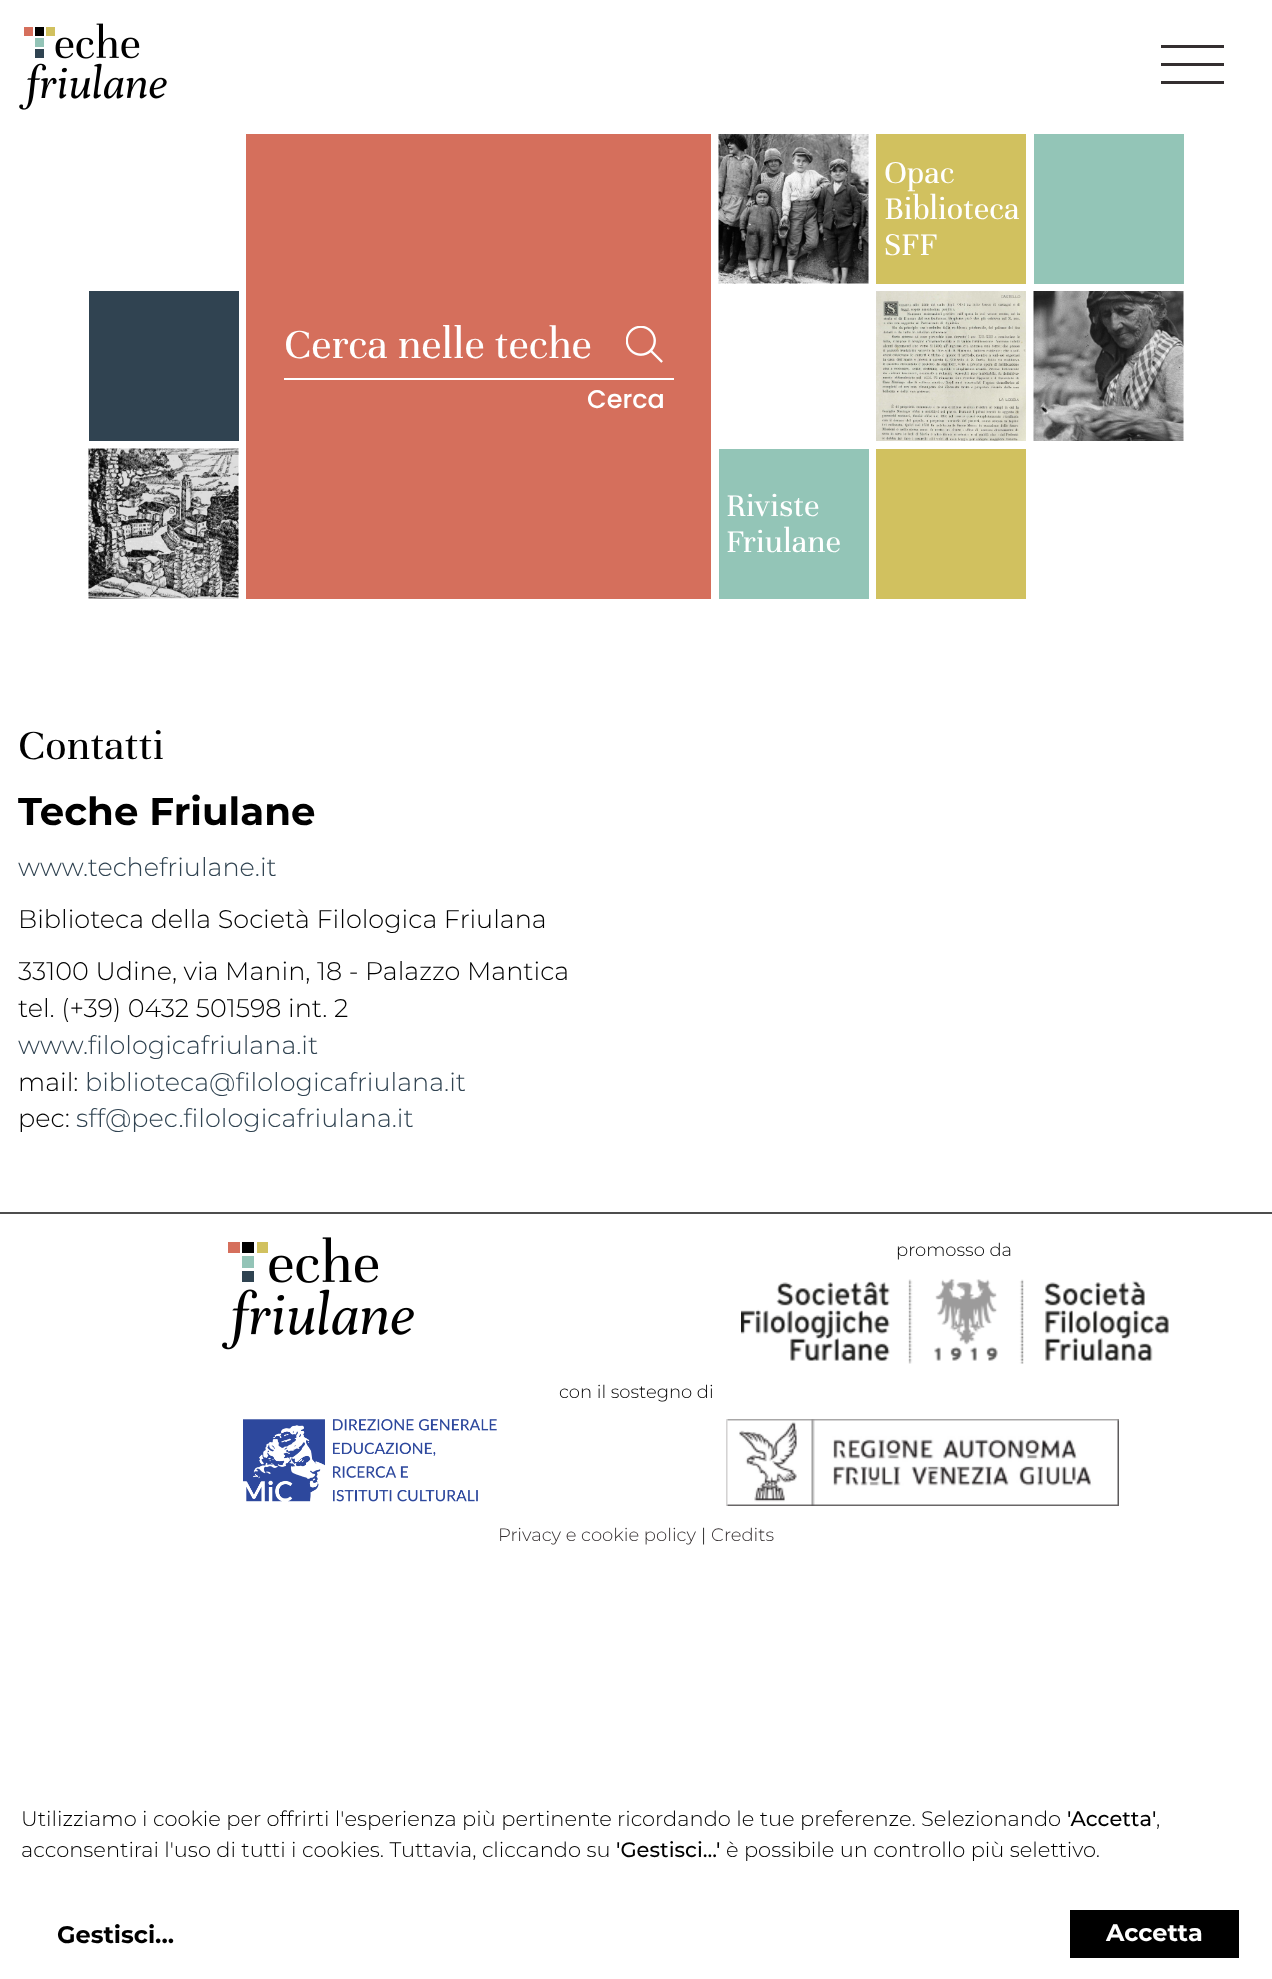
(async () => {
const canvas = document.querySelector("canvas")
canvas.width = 1272
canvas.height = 1979
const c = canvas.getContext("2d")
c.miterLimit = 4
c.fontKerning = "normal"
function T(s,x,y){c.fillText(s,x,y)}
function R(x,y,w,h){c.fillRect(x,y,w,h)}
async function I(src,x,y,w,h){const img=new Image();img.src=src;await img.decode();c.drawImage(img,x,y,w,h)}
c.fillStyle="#fff"
R(0,0,1272,1979)
await I("1.png",19,23,148,87)
c.fillStyle="#342f30"
R(1161,45,63,3)
R(1161,63,63,3)
R(1161,81,63,3)
await I("2.png",718,134,151,150)
c.fillStyle="#d1c15f"
R(876,134,150,150)
c.font="34.5px Unna"
c.fillStyle="#fff"
T("Opac",884,183)
T("Biblioteca",884,219)
T("SFF",884,255)
c.fillStyle="#93c5b7"
R(1034,134,150,150)
c.fillStyle="#304351"
R(89,291,150,150)
c.fillStyle="#d56f5c"
R(246,134,465,465)
await I("3.png",626,326,37,37)
c.fillStyle="#fff"
R(284,378,390,2)
c.font="45px Unna"
T("Cerca nelle teche",284,358)
c.font="500 25.5px Poppins"
T("Cerca",587,408)
await I("4.png",876,291,150,150)
await I("5.png",1033,291,151,150)
await I("6.png",88,448,151,151)
c.fillStyle="#93c5b7"
R(719,449,150,150)
c.font="34.5px Unna"
c.fillStyle="#fff"
T("Riviste",726,516)
T("Friulane",726,552)
c.fillStyle="#d1c15f"
R(876,449,150,150)
c.font="45px Unna"
c.fillStyle="#000"
T("Contatti",18,759)
c.font="bold 38.75px Montserrat"
T("Teche Friulane",18,825)
c.font="300 25.5px Montserrat"
c.fillStyle="#304351"
T("www.techefriulane.it",18,876)
c.fillStyle="#000"
T("Biblioteca della Società Filologica Friulana",18,928)
T("33100 Udine, via Manin, 18 - Palazzo Mantica",18,980)
T("tel. (+39) 0432 501598 int. 2",18,1017)
c.fillStyle="#304351"
T("www.filologicafriulana.it",18,1054)
c.fillStyle="#000"
T("mail:",18,1091)
c.fillStyle="#304351"
T("biblioteca@filologicafriulana.it",85,1091)
c.fillStyle="#000"
T("pec:",18,1127)
c.fillStyle="#304351"
T("sff@pec.filologicafriulana.it",76,1127)
c.fillStyle="#4d4d4d"
R(0,1212,1272,2)
await I("7.png",222,1237,192,113)
c.font="300 18px Montserrat"
c.fillStyle="#000"
T("promosso da",896,1256)
await I("8.png",741,1278,428,86)
T("con il sostegno di",559,1398)
await I("9.png",243,1419,254,83)
await I("10.png",726,1419,393,87)
c.fillStyle="#342f30"
T("Privacy e cookie policy",498,1541)
c.fillStyle="#000"
T("|",701,1541)
c.fillStyle="#342f30"
T("Credits",711,1541)
c.font="300 21px Montserrat"
c.fillStyle="#000"
T("Utilizziamo i cookie per offrirti l'esperienza più pertinente ricordando le tue preferenze. Selezionando",21,1826)
c.font="500 21px Montserrat"
T("'Accetta'",1067,1826)
c.font="300 21px Montserrat"
T(",",1156,1826)
T("acconsentirai l'uso di tutti i cookies. Tuttavia, cliccando su",21,1857)
c.font="500 21px Montserrat"
T("'Gestisci...'",616,1857)
c.font="300 21px Montserrat"
T("è possibile un controllo più selettivo.",726,1857)
c.font="bold 24px Montserrat"
T("Gestisci...",57,1943)
R(1070,1910,169,48)
c.fillStyle="#fff"
T("Accetta",1106,1941)
})()
